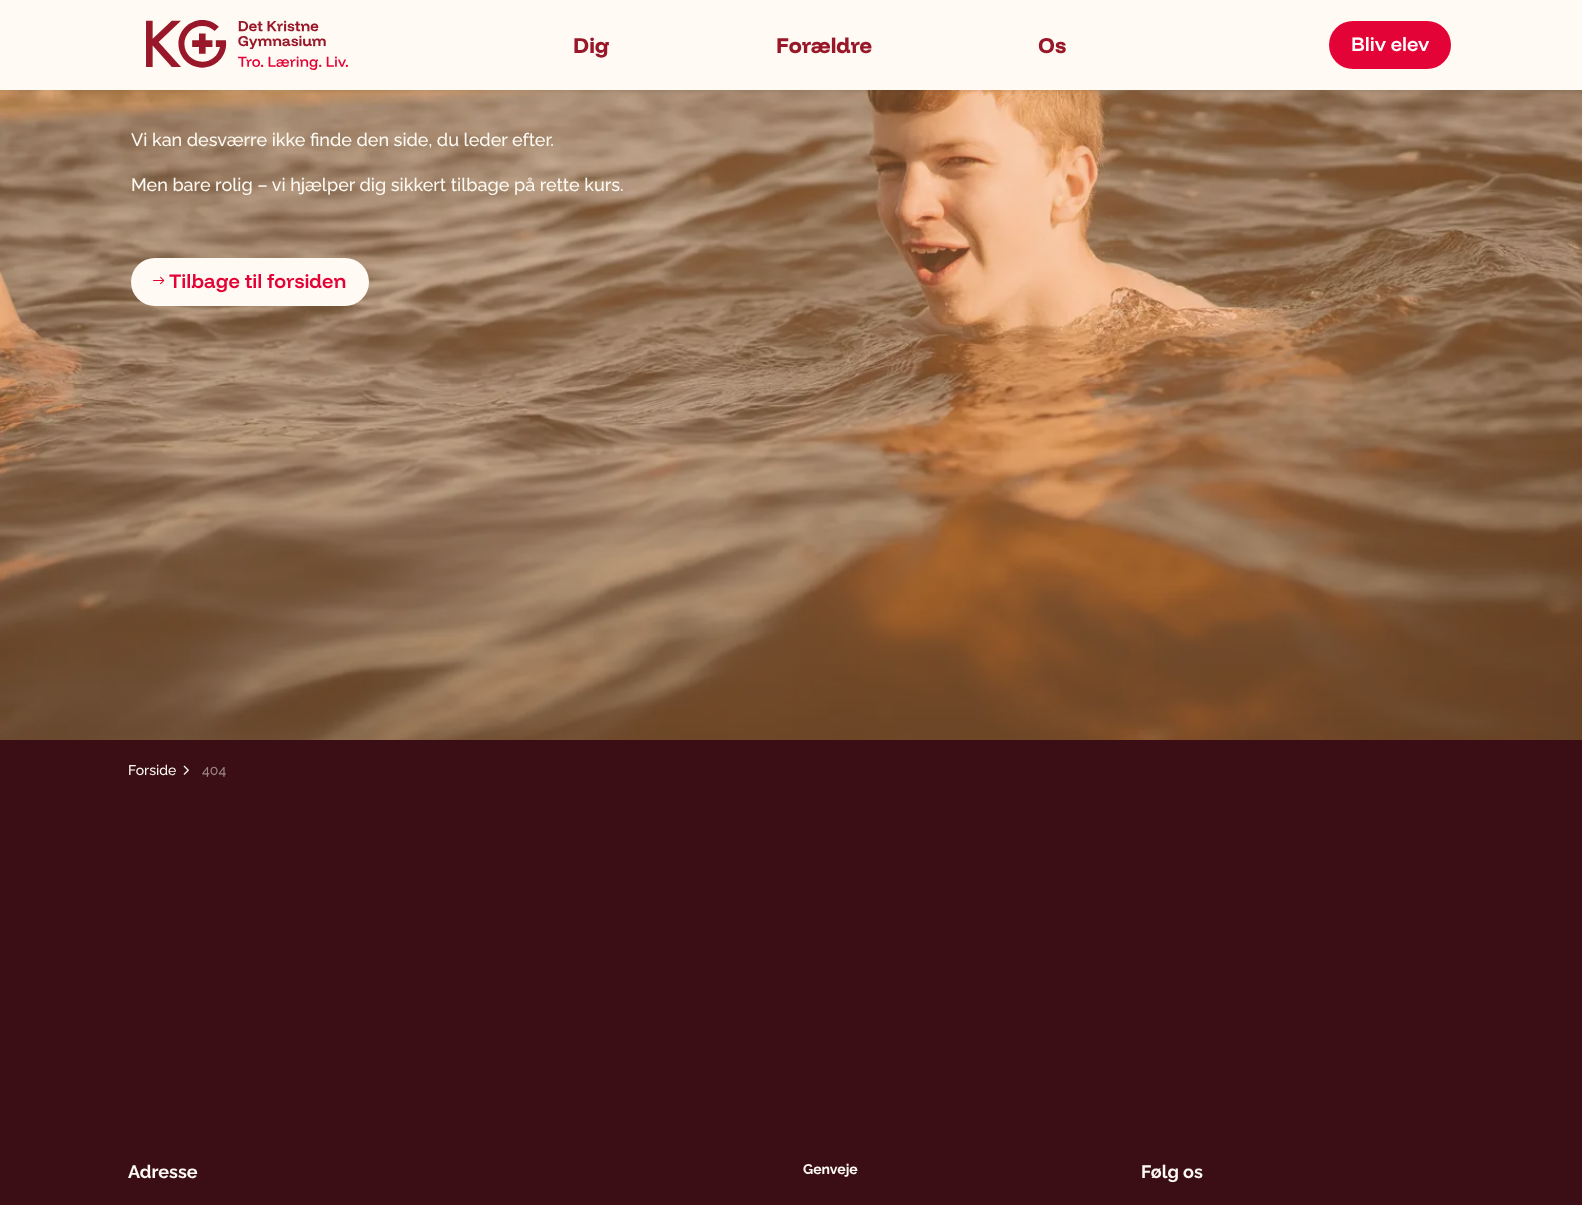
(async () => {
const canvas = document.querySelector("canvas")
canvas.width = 1582
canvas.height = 1205
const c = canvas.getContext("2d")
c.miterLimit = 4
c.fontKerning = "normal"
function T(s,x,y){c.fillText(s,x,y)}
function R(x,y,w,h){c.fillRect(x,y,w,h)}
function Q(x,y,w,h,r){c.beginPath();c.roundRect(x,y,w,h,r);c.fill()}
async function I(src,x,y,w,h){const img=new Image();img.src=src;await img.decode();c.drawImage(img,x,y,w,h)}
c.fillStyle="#3a0e14"
R(0,0,1582,1205)
c.fillStyle="#ef9f5b"
R(0,90,1582,650)
await I("2.png",0,90,1582,650)
c.fillStyle="#0000000d"
c.filter="blur(1px)"
c.beginPath()
c.rect(0,2,1582,90)
c.fill()
c.filter="none"
c.fillStyle="#fffbf4"
R(0,0,1582,90)
await I("1.png",146,20,202,50)
c.font="800 22px Funnel Display"
c.fillStyle="#981829"
T("Dig",573,53)
T("Forældre",776,53)
T("Os",1038,53)
c.fillStyle="#e40337"
Q(1329,21,122,48,24)
c.font="600 20px Funnel Display"
c.fillStyle="#fff"
T("Bliv elev",1351,51)
c.font="500 18px Raleway"
c.fillStyle="#fffbf4"
T("Vi kan desværre ikke finde den side, du leder efter.",131,146)
T("Men bare rolig – vi hjælper dig sikkert tilbage på rette kurs.",131,191)
Q(131,258,238,48,24)
await I("3.png",153,276,12,9)
c.font="600 20px Funnel Display"
c.fillStyle="#e40337"
T("Tilbage til forsiden",169,288)
c.font="500 14px Raleway"
c.fillStyle="#fffbf4"
T("Forside",128,775)
await I("4.png",183,765,6,10)
c.fillStyle="#9d8584"
T("404",202,775)
c.font="bold 18px Raleway"
c.fillStyle="#fffbf4"
T("Adresse",128,1178)
c.font="bold 14px Raleway"
T("Genveje",803,1174)
c.font="bold 18px Raleway"
T("Følg os",1141,1178)
})()
